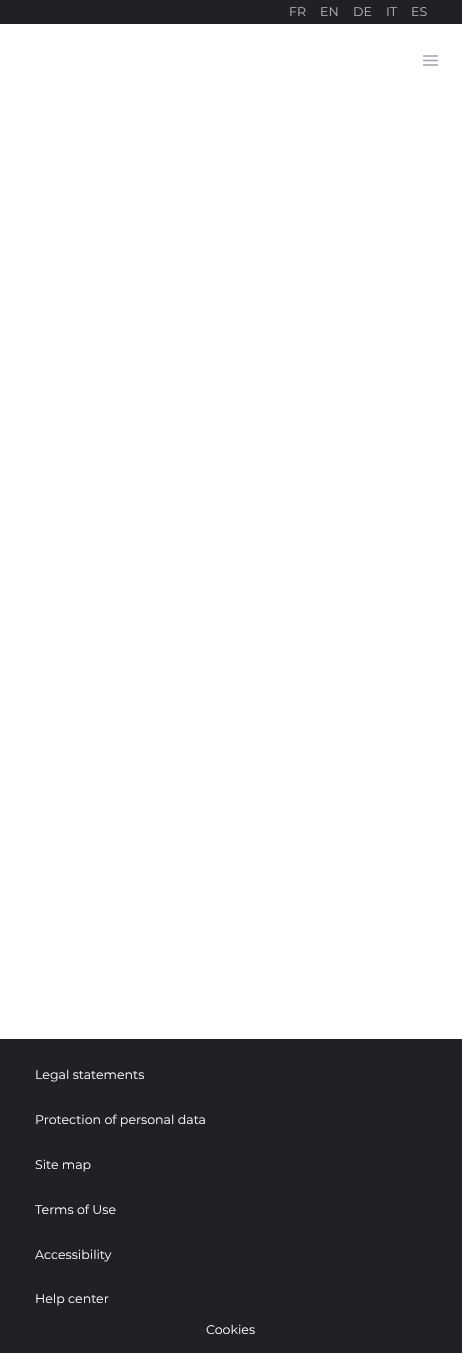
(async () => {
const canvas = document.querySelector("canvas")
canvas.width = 462
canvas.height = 1353
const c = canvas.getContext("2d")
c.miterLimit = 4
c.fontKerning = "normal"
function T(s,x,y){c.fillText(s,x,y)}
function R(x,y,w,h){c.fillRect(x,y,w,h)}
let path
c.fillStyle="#fff"
R(0,0,462,1353)
c.fillStyle="#212125"
R(0,0,462,24)
c.font="12.6px Montserrat"
c.fillStyle="#bcbcbe"
T("FR",289,16)
T("EN",320,16)
T("DE",353,16)
T("IT",386,16)
T("ES",411,16)
path = new Path2D("M423.5 56h14m-14 4.5h14m-14 4.5h14")
c.strokeStyle="#9ca3af"
c.lineWidth=1.3
c.lineCap="round"
c.lineJoin="round"
c.stroke(path)
c.fillStyle="#212125"
R(0,1039,462,314)
c.fillStyle="#fff"
T("Legal statements",35,1079)
T("Protection of personal data",35,1124)
T("Site map",35,1169)
T("Terms of Use",35,1214)
T("Accessibility",35,1259)
T("Help center",35,1303)
T("Cookies",206,1334)
})()
